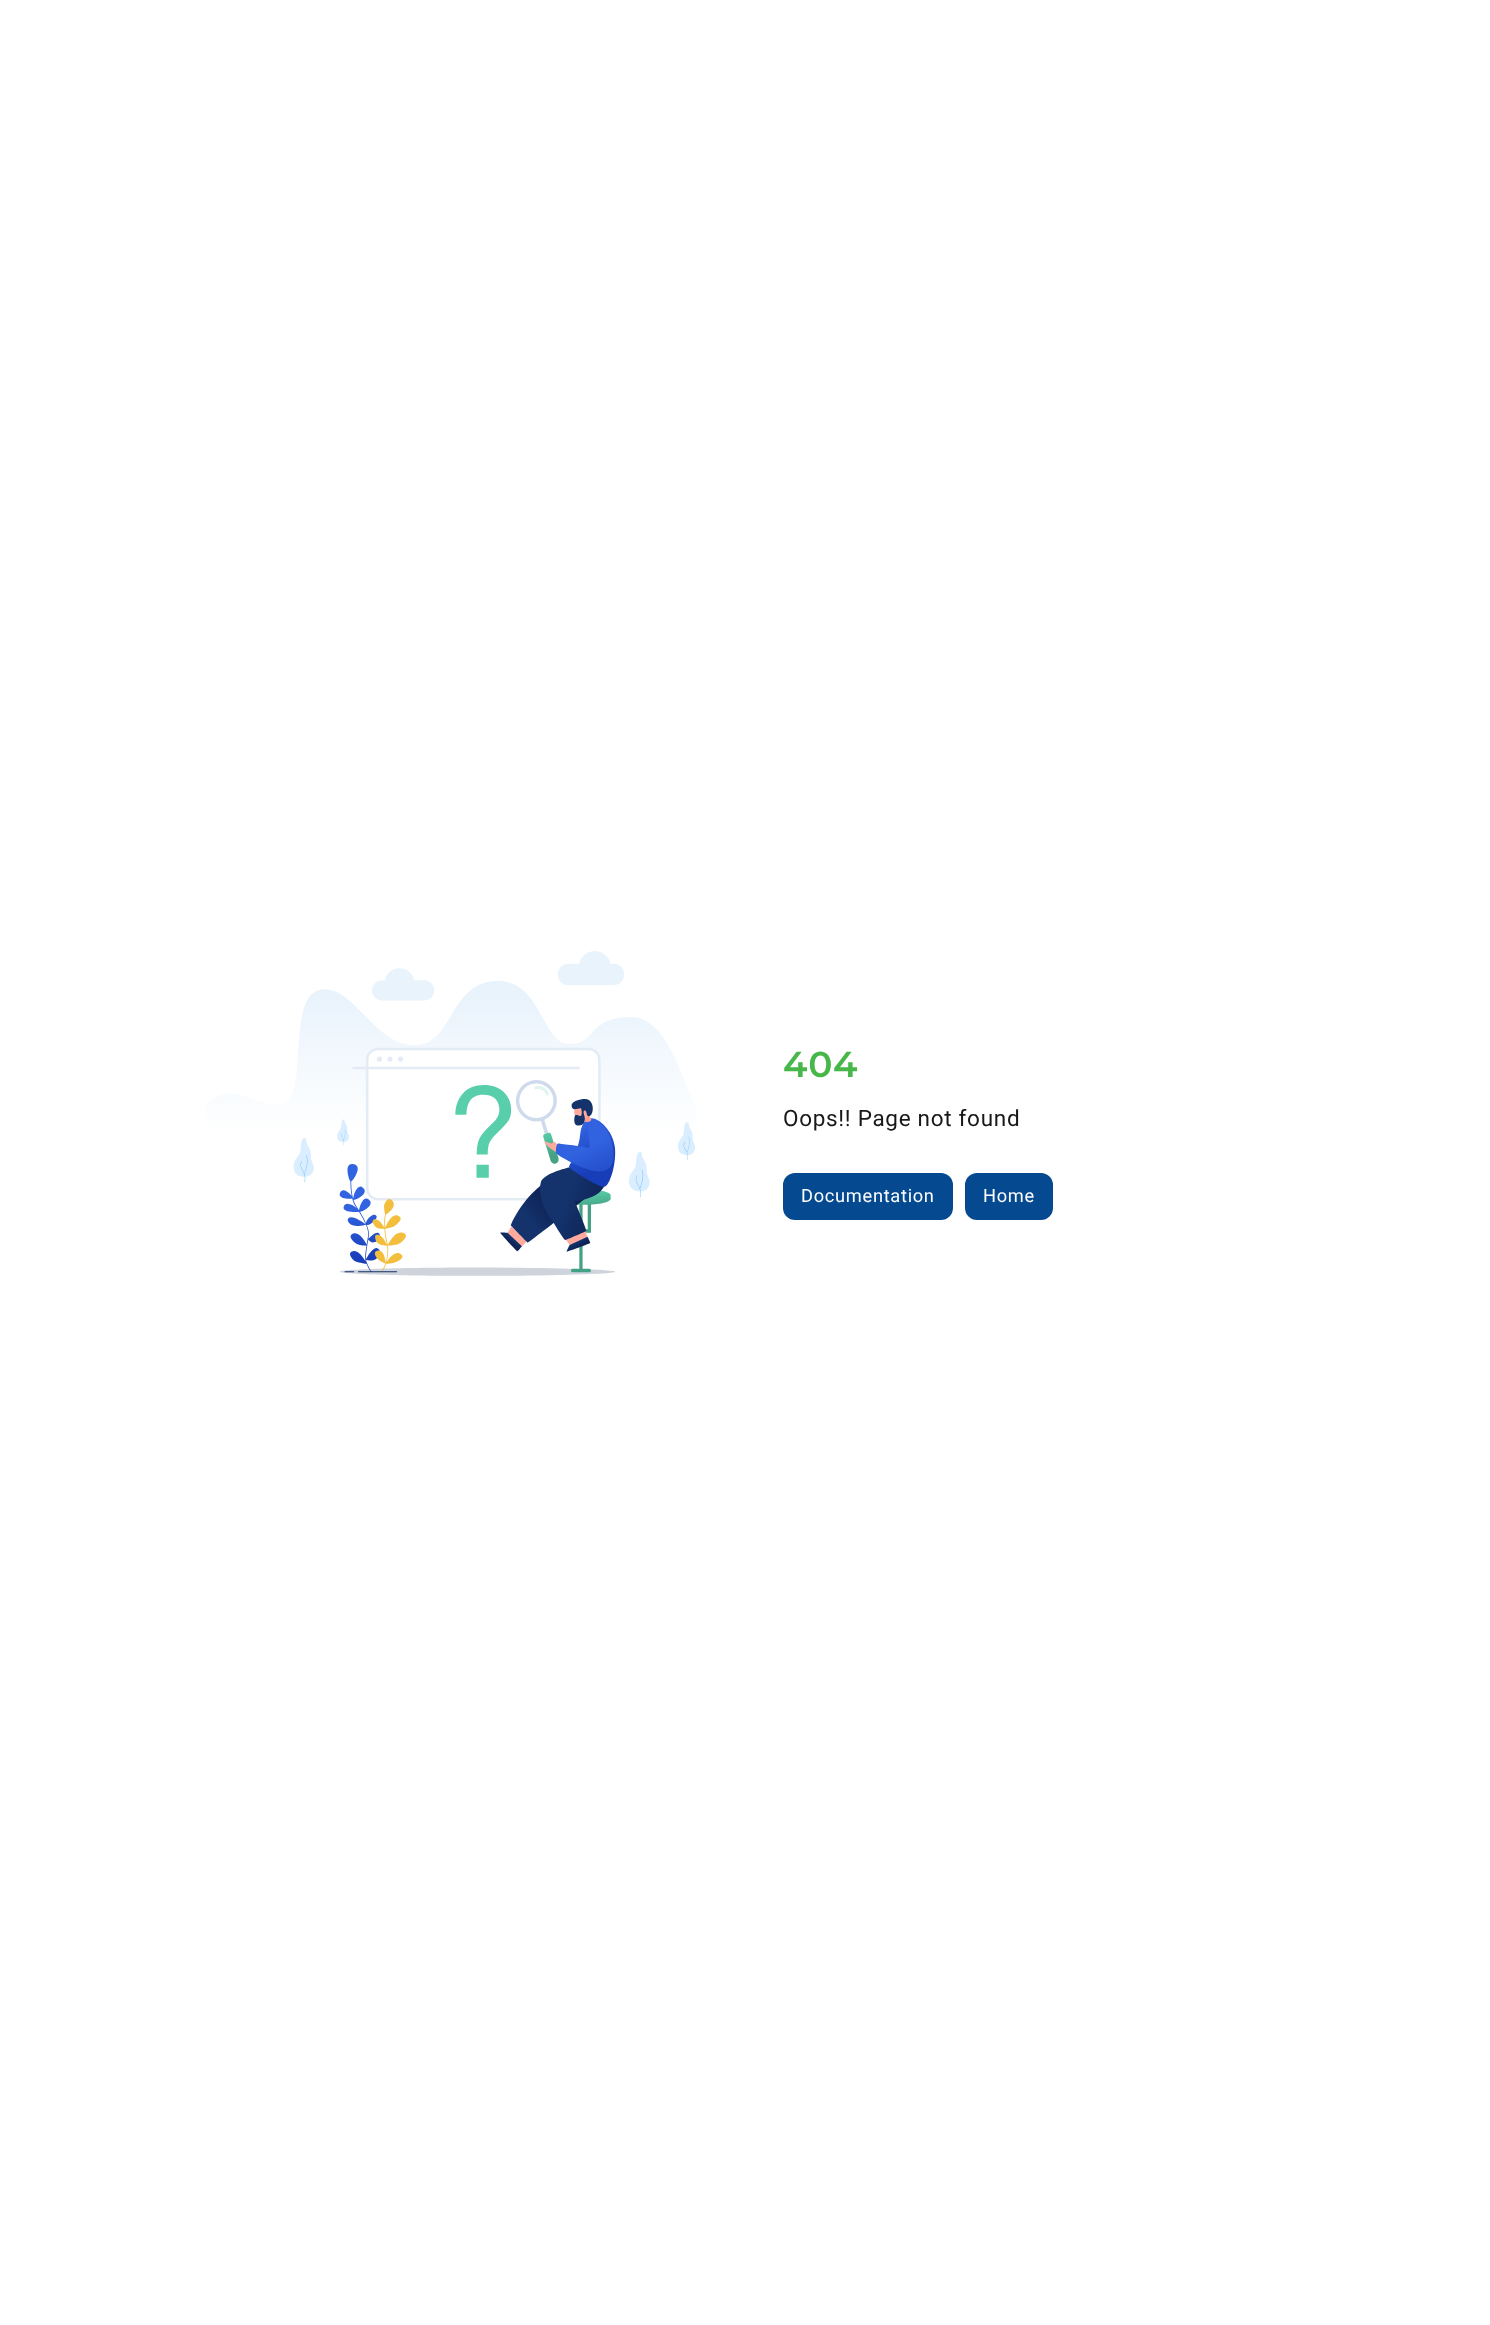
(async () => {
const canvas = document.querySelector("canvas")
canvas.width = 1490
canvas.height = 2325
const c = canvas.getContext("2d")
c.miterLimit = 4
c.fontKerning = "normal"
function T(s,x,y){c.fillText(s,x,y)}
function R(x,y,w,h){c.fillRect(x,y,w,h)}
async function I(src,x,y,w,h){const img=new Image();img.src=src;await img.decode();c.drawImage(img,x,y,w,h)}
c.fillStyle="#fff"
R(0,0,1490,2325)
await I("1.png",205,951,491,325)
c.letterSpacing="0.7px"
c.font="600 36px Montserrat"
c.fillStyle="#48b749"
T("404",783,1077)
c.font="22.5px Roboto"
c.fillStyle="#18181b"
T("Oops!! Page not found",783,1126)
c.fillStyle="#054a91"
c.beginPath()
c.roundRect(784,1174,168,45,11)
c.fill()
c.strokeStyle="#054a91"
c.lineWidth=2
c.stroke()
c.font="18.25px Roboto"
c.fillStyle="#fff"
T("Documentation",801,1202)
c.fillStyle="#054a91"
c.beginPath()
c.roundRect(966,1174,86,45,11)
c.fill()
c.stroke()
c.fillStyle="#fff"
T("Home",983,1202)
})()
